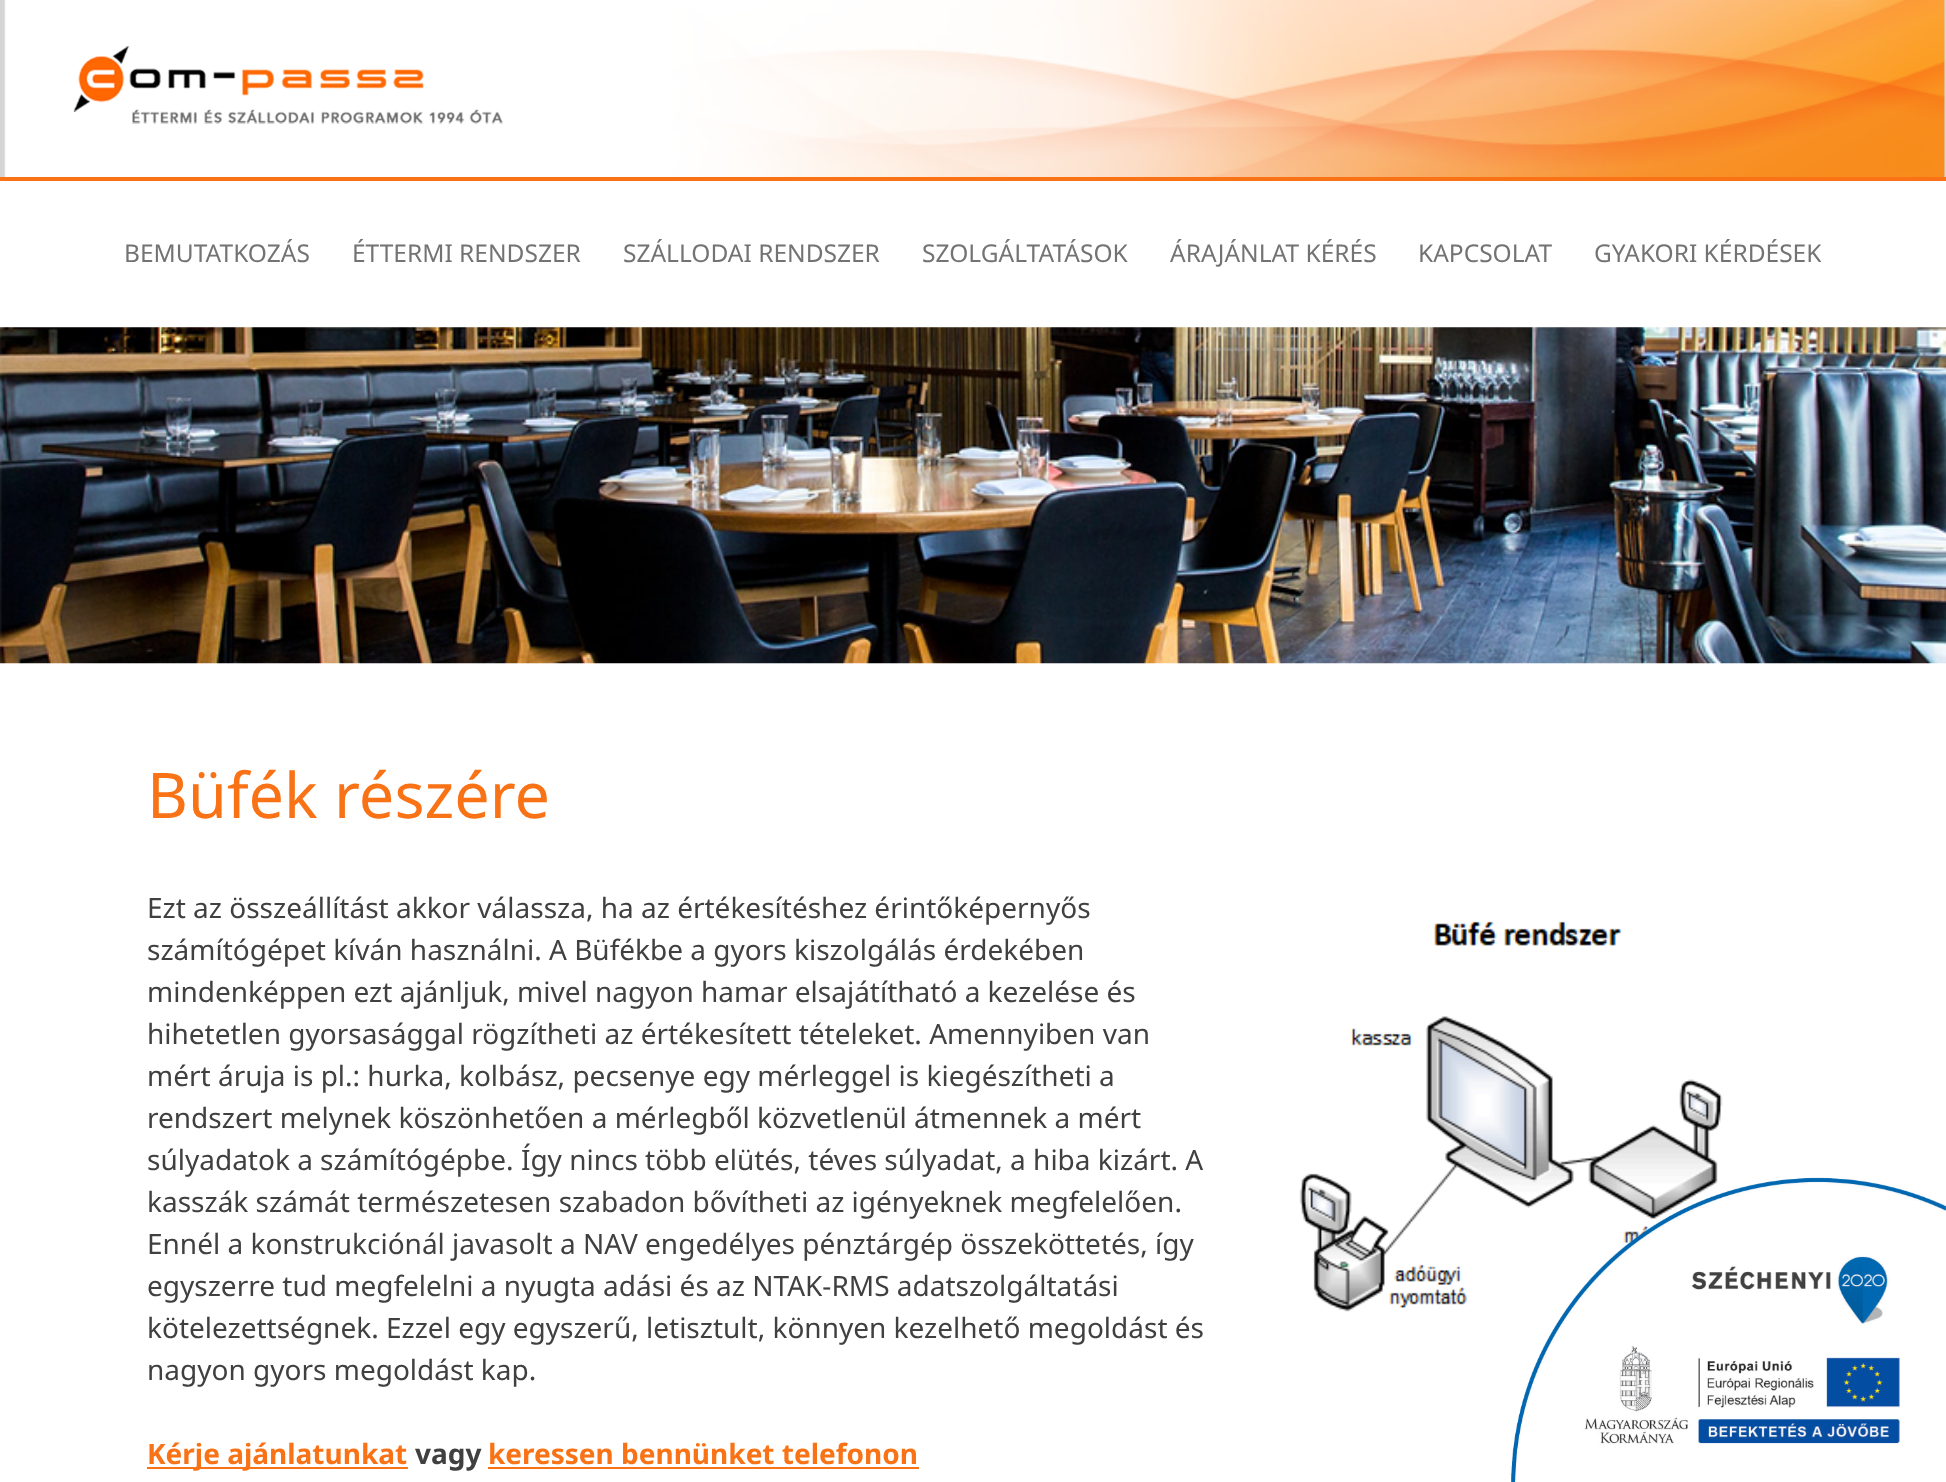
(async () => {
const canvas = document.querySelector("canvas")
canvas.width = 1946
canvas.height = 1482
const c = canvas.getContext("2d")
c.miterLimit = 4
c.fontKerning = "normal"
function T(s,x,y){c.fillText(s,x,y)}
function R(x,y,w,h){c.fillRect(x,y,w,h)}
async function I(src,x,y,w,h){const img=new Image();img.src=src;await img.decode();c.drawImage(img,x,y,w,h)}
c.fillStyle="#fff"
R(0,0,1946,1482)
await I("1.png",0,0,1946,177)
c.fillStyle="#f97316"
R(0,177,1946,4)
await I("2.png",73,46,430,78)
c.font="24.5px Noto Sans"
c.fillStyle="#737373"
T("BEMUTATKOZÁS",124,262)
T("ÉTTERMI RENDSZER",352,262)
T("SZÁLLODAI RENDSZER",623,262)
T("SZOLGÁLTATÁSOK",922,262)
T("ÁRAJÁNLAT KÉRÉS",1170,262)
T("KAPCSOLAT",1418,262)
T("GYAKORI KÉRDÉSEK",1594,262)
await I("3.png",0,327,1946,337)
c.font="63px Noto Sans"
c.fillStyle="#f97316"
T("Büfék részére",147,818)
c.font="28px Noto Sans"
c.fillStyle="#404040"
T("Ezt az összeállítást akkor válassza, ha az értékesítéshez érintőképernyős",147,918)
T("számítógépet kíván használni. A Büfékbe a gyors kiszolgálás érdekében",147,960)
T("mindenképpen ezt ajánljuk, mivel nagyon hamar elsajátítható a kezelése és",147,1002)
T("hihetetlen gyorsasággal rögzítheti az értékesített tételeket. Amennyiben van",147,1044)
T("mért áruja is pl.: hurka, kolbász, pecsenye egy mérleggel is kiegészítheti a",147,1086)
T("rendszert melynek köszönhetően a mérlegből közvetlenül átmennek a mért",147,1128)
T("súlyadatok a számítógépbe. Így nincs több elütés, téves súlyadat, a hiba kizárt. A",147,1170)
T("kasszák számát természetesen szabadon bővítheti az igényeknek megfelelően.",147,1212)
T("Ennél a konstrukciónál javasolt a NAV engedélyes pénztárgép összeköttetés, így",147,1254)
T("egyszerre tud megfelelni a nyugta adási és az NTAK-RMS adatszolgáltatási",147,1296)
T("kötelezettségnek. Ezzel egy egyszerű, letisztult, könnyen kezelhető megoldást és",147,1338)
T("nagyon gyors megoldást kap.",147,1380)
c.fillStyle="#f97316"
R(147,1467,261,2)
c.font="bold 28px Noto Sans"
T("Kérje ajánlatunkat",147,1464)
c.fillStyle="#404040"
T("vagy",415,1464)
c.fillStyle="#f97316"
R(488,1467,431,2)
T("keressen bennünket telefonon",488,1464)
await I("4.png",1299,921,424,391)
await I("5.png",1511,1177,435,305)
})()
